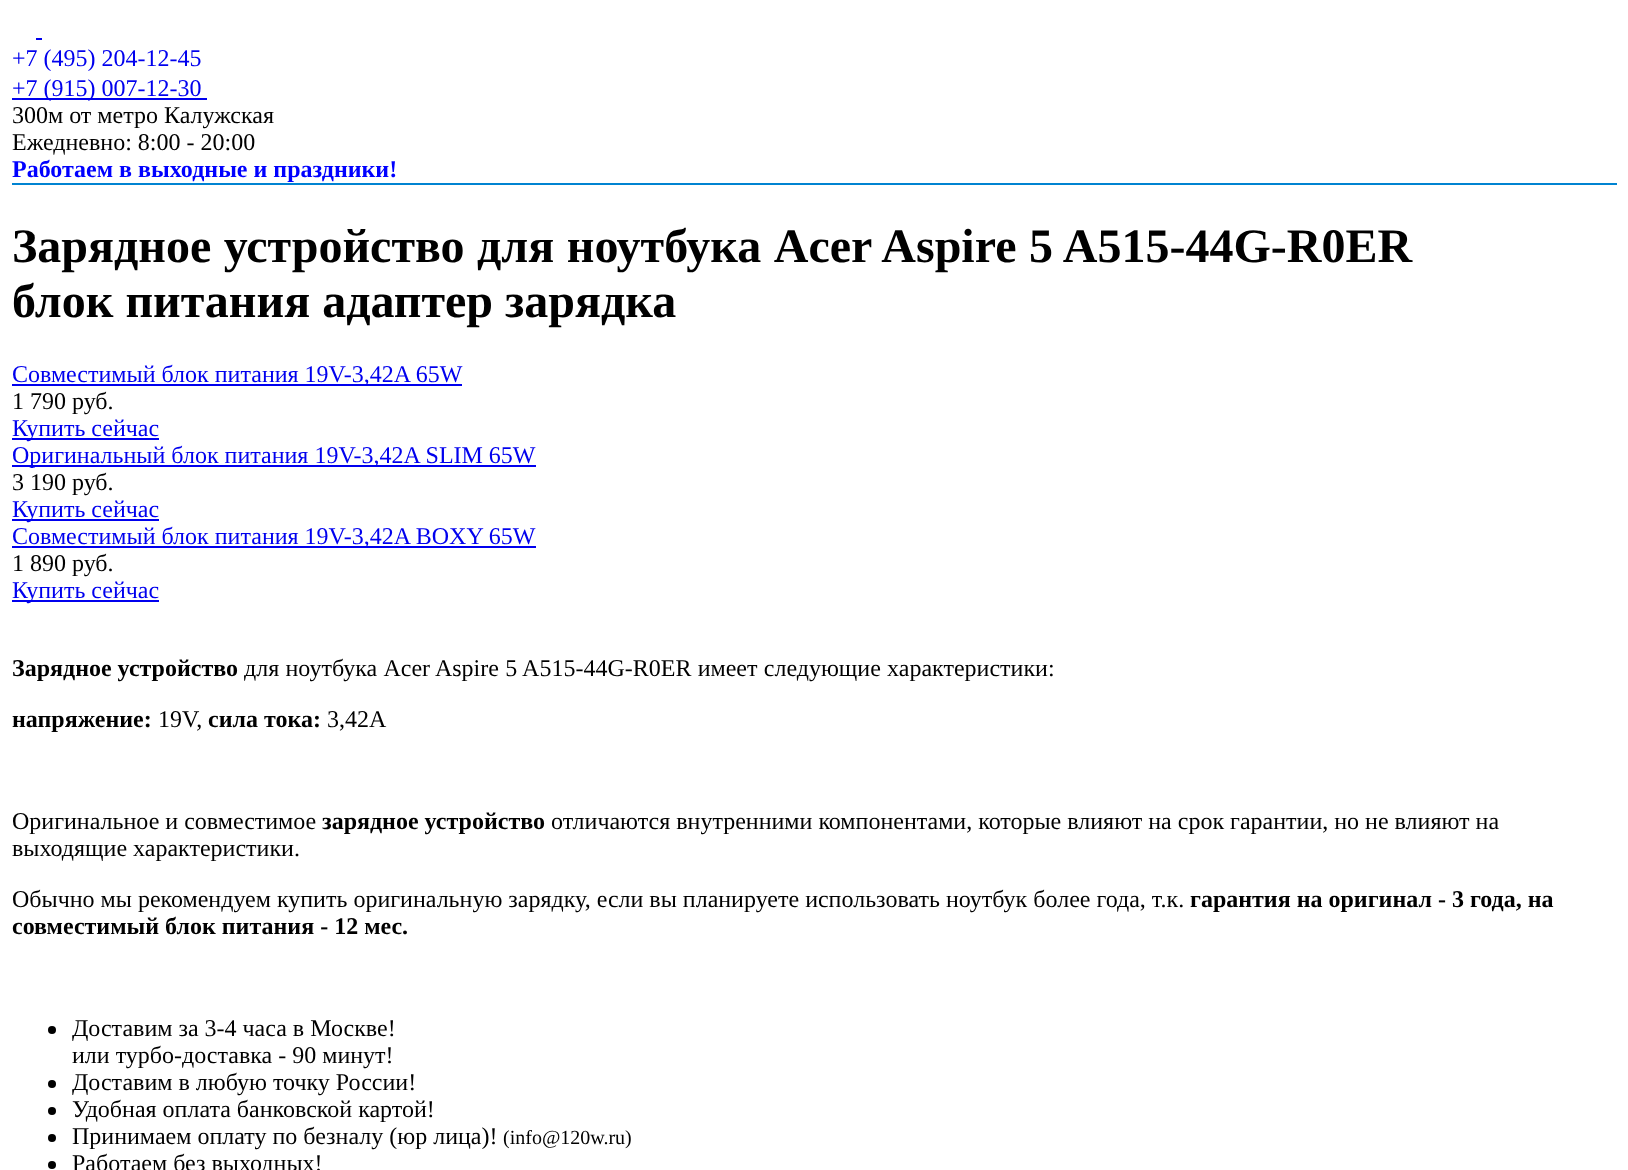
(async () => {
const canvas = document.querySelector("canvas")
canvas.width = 1628
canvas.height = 1170
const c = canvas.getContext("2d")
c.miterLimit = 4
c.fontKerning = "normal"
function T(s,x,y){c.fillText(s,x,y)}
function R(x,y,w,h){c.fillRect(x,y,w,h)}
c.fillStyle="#fff"
R(0,0,1628,1170)
c.fillStyle="#00e"
R(36,38,6,2)
c.font="24px Liberation Serif"
T("+7 (495) 204-12-45",12,66)
R(12,98,195,2)
T("+7 (915) 007-12-30",12,96)
c.fillStyle="#000"
T("300м от метро Калужская",12,123)
T("Ежедневно: 8:00 - 20:00",12,150)
c.font="bold 24px Liberation Serif"
c.fillStyle="#00f"
T("Работаем в выходные и праздники!",12,177)
c.fillStyle="#0083d1"
R(12,183,1605,2)
c.wordSpacing="0.5px"
c.font="bold 48px Liberation Serif"
c.fillStyle="#000"
T("Зарядное устройство для ноутбука Acer Aspire 5 A515-44G-R0ER",12,262)
c.wordSpacing="0px"
T("блок питания адаптер зарядка",12,317)
c.fillStyle="#00e"
R(12,384,450,2)
c.font="24px Liberation Serif"
T("Совместимый блок питания 19V-3,42A 65W",12,382)
c.fillStyle="#000"
T("1 790 руб.",12,409)
c.fillStyle="#00e"
R(12,438,147,2)
T("Купить сейчас",12,436)
R(12,465,524,2)
T("Оригинальный блок питания 19V-3,42A SLIM 65W",12,463)
c.fillStyle="#000"
T("3 190 руб.",12,490)
c.fillStyle="#00e"
R(12,519,147,2)
T("Купить сейчас",12,517)
R(12,546,524,2)
T("Совместимый блок питания 19V-3,42A BOXY 65W",12,544)
c.fillStyle="#000"
T("1 890 руб.",12,571)
c.fillStyle="#00e"
R(12,600,147,2)
T("Купить сейчас",12,598)
c.font="bold 24px Liberation Serif"
c.fillStyle="#000"
T("Зарядное устройство",12,676)
c.wordSpacing="0.25px"
c.font="24px Liberation Serif"
T("для ноутбука Acer Aspire 5 A515-44G-R0ER имеет следующие характеристики:",244,676)
c.wordSpacing="0px"
c.font="bold 24px Liberation Serif"
T("напряжение:",12,727)
c.font="24px Liberation Serif"
T("19V,",158,727)
c.font="bold 24px Liberation Serif"
T("сила тока:",208,727)
c.font="24px Liberation Serif"
T("3,42A",327,727)
T("Оригинальное и совместимое",12,829)
c.font="bold 24px Liberation Serif"
T("зарядное устройство",322,829)
c.font="24px Liberation Serif"
T("отличаются внутренними компонентами, которые влияют на срок гарантии, но не влияют на",551,829)
T("выходящие характеристики.",12,856)
T("Обычно мы рекомендуем купить оригинальную зарядку, если вы планируете использовать ноутбук более года, т.к.",12,907)
c.font="bold 24px Liberation Serif"
T("гарантия на оригинал - 3 года, на",1190,907)
T("совместимый блок питания - 12 мес.",12,934)
c.beginPath()
c.arc(52,1030,4,0,7)
c.fill()
c.font="24px Liberation Serif"
T("Доставим за 3-4 часа в Москве!",72,1036)
T("или турбо-доставка - 90 минут!",72,1063)
c.beginPath()
c.arc(52,1084,4,0,7)
c.fill()
T("Доставим в любую точку России!",72,1090)
c.beginPath()
c.arc(52,1111,4,0,7)
c.fill()
T("Удобная оплата банковской картой!",72,1117)
c.beginPath()
c.arc(52,1138,4,0,7)
c.fill()
T("Принимаем оплату по безналу (юр лица)!",72,1144)
c.font="20px Liberation Serif"
T("(info@120w.ru)",503,1144)
c.beginPath()
c.arc(52,1165,4,0,7)
c.fill()
c.font="24px Liberation Serif"
T("Работаем без выходных!",72,1171)
})()
